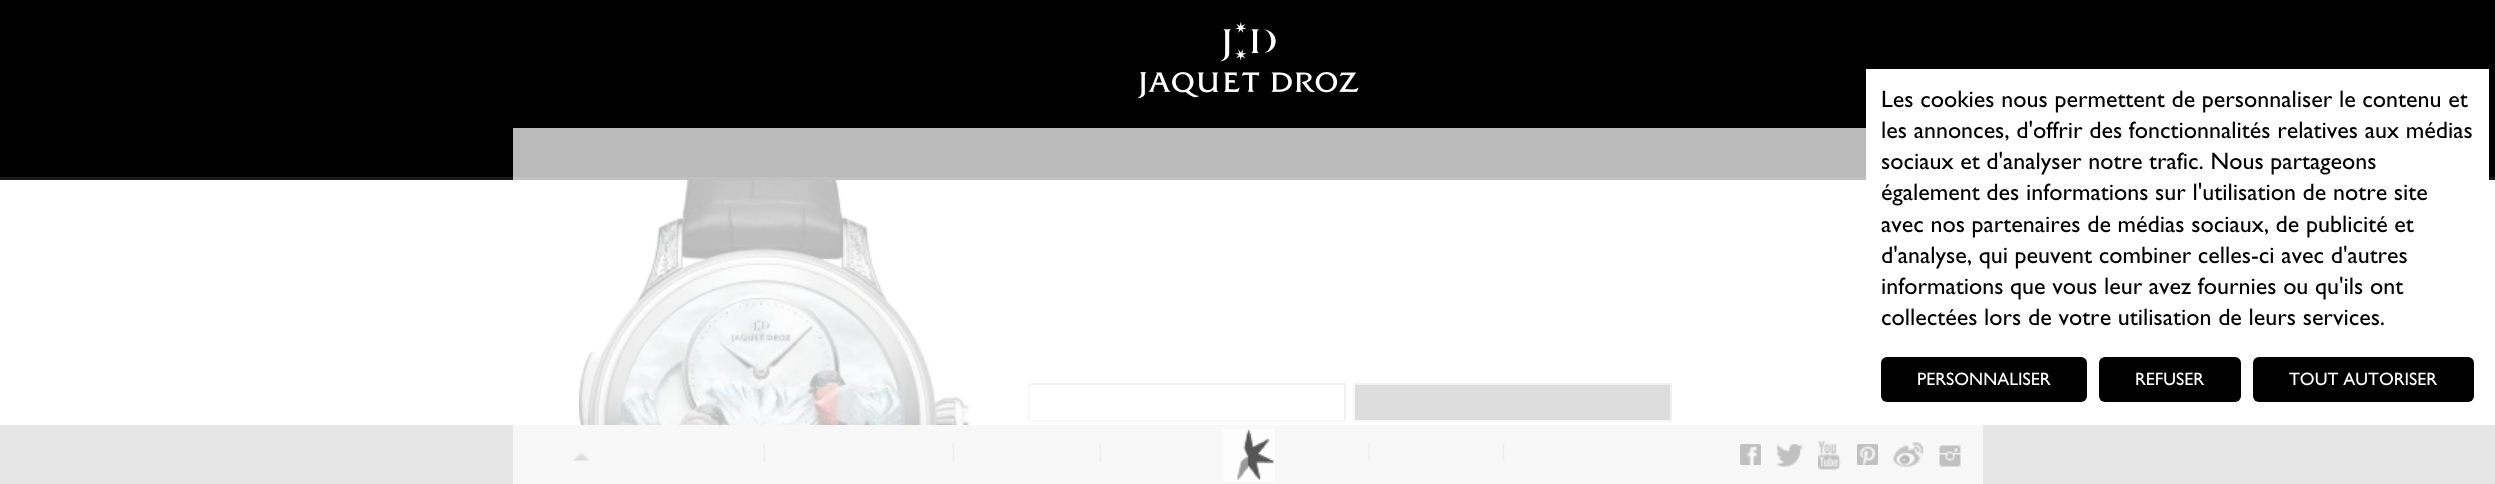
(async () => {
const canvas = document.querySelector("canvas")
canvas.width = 2495
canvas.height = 484
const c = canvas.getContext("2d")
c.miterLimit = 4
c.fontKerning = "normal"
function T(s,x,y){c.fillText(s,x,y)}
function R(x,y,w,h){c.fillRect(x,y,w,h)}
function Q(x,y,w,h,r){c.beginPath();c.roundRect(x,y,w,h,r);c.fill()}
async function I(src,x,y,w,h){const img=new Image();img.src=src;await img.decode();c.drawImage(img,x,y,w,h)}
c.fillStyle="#fff"
R(0,0,2495,484)
c.fillStyle="#000"
R(0,0,2495,177)
c.fillStyle="#1a1a1a"
R(0,177,2495,3)
await I("1.png",1137,22,222,77)
await I("3.png",575,180,396,245)
c.fillStyle="#ccc"
R(1028,383,318,2)
R(1344,383,2,39)
c.fillStyle="#e5e5e5"
R(1028,420,318,2)
R(1028,383,2,39)
c.fillStyle="#808080"
R(1355,385,315,35)
c.fillStyle="#ccc"
R(1353,383,318,2)
R(1670,383,2,39)
c.fillStyle="#e5e5e5"
R(1353,420,318,2)
R(1353,383,2,39)
c.fillStyle="#e6e6e6"
R(0,425,2495,59)
await I("4.png",572,452,18,9)
await I("5.png",763,442,2,21)
await I("6.png",952,442,3,21)
await I("5.png",1099,442,2,21)
await I("7.png",1367,442,3,21)
await I("8.png",1503,442,2,21)
await I("9.png",1740,444,21,21)
await I("10.png",1776,444,27,23)
await I("11.png",1818,441,23,29)
await I("12.png",1857,444,21,21)
await I("13.png",1893,442,31,26)
await I("14.png",1939,445,22,22)
c.fillStyle="#ffffffba"
R(513,128,1470,356)
await I("2.png",1222,429,53,52)
c.fillStyle="#fff"
R(1866,69,623,111)
c.font="24px Gill Sans"
c.fillStyle="#000"
T("Les cookies nous permettent de personnaliser le contenu et",1881,107)
T("les annonces, d'offrir des fonctionnalités relatives aux médias",1881,138)
T("sociaux et d'analyser notre trafic. Nous partageons",1881,169)
T("également des informations sur l'utilisation de notre site",1881,200)
T("avec nos partenaires de médias sociaux, de publicité et",1881,232)
T("d'analyse, qui peuvent combiner celles-ci avec d'autres",1881,263)
T("informations que vous leur avez fournies ou qu'ils ont",1881,294)
T("collectées lors de votre utilisation de leurs services.",1881,325)
Q(1881,357,206,45,6)
c.font="18px Gill Sans"
c.fillStyle="#fff"
T("PERSONNALISER",1917,385)
c.fillStyle="#000"
Q(2099,357,142,45,6)
c.fillStyle="#fff"
T("REFUSER",2135,385)
c.fillStyle="#000"
Q(2253,357,221,45,6)
c.fillStyle="#fff"
T("TOUT AUTORISER",2289,385)
})()
